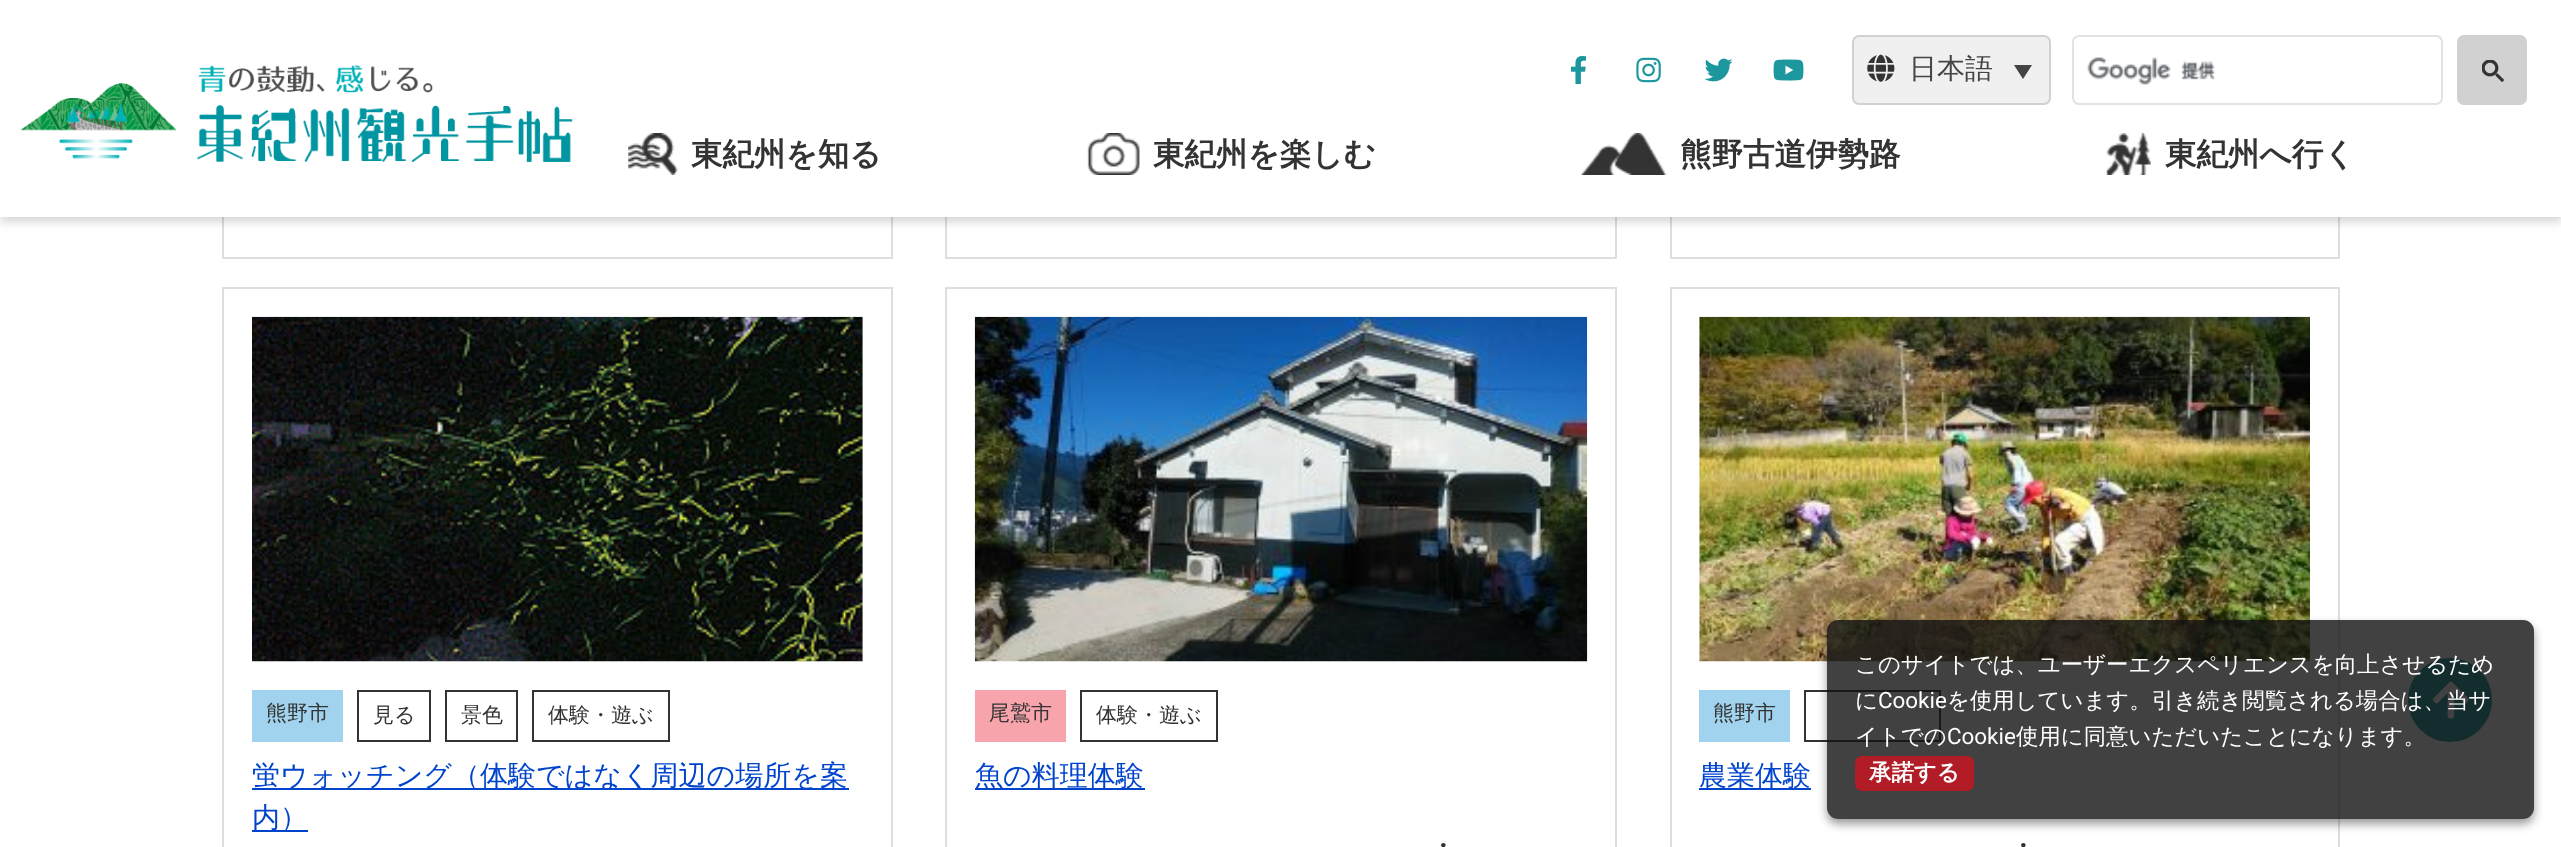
(async () => {
const canvas = document.querySelector("canvas")
canvas.width = 2561
canvas.height = 847
const c = canvas.getContext("2d")
c.miterLimit = 4
c.fontKerning = "normal"
function T(s,x,y){c.fillText(s,x,y)}
function R(x,y,w,h){c.fillRect(x,y,w,h)}
function Q(x,y,w,h,r){c.beginPath();c.roundRect(x,y,w,h,r);c.fill()}
async function I(src,x,y,w,h){const img=new Image();img.src=src;await img.decode();c.drawImage(img,x,y,w,h)}
let path
c.fillStyle="#fff"
R(0,0,2561,847)
c.strokeStyle="#dedede"
c.lineWidth=2
c.strokeRect(223,-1,669,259)
c.strokeRect(946,-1,670,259)
c.strokeRect(1671,-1,668,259)
c.fillStyle="#00000029"
c.filter="blur(5px)"
c.beginPath()
c.rect(0,5,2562,217)
c.fill()
c.filter="none"
c.fillStyle="#fff"
R(0,0,2561,217)
await I("1.png",21,64,552,98)
await I("2.png",1571,56,15,28)
await I("3.png",1636,57,25,26)
await I("4.png",1704,58,29,24)
await I("5.png",1773,59,31,22)
c.fillStyle="#f0f0f0"
c.beginPath()
c.roundRect(1853,36,197,68,6)
c.fill()
c.strokeStyle="#d1d1d1"
c.stroke()
await I("6.png",1867,54,28,28)
c.font="500 28px WenQuanYi Zen Hei"
c.fillStyle="#444"
T("日本語",1909,78)
path = new Path2D("M2014 65h18l-9 14z")
c.fill(path)
c.beginPath()
c.roundRect(2073,36,369,68,6)
c.strokeStyle="#e2e2e2"
c.stroke()
await I("7.png",2087,57,128,28)
c.fillStyle="#d1d1d1"
Q(2457,35,70,70,7)
await I("8.png",2482,60,22,22)
await I("9.png",628,133,50,42)
c.font="bold 31.5px WenQuanYi Zen Hei"
c.fillStyle="#333"
T("東紀州を知る",691,165)
await I("10.png",1087,133,53,42)
T("東紀州を楽しむ",1153,165)
await I("11.png",1581,133,86,42)
T("熊野古道伊勢路",1680,165)
await I("12.png",2106,133,45,42)
T("東紀州へ行く",2165,165)
c.strokeStyle="#dedede"
c.strokeRect(1671,288,668,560)
await I("15.png",1699,316,611,346)
c.strokeStyle="#333"
c.strokeRect(1805,691,135,50)
c.fillStyle="#1d979e"
c.beginPath()
c.arc(2450,700,41,0,7)
c.fill()
c.strokeStyle="#1d979e"
c.stroke()
await I("16.png",2433,681,36,38)
c.save()
path = new Path2D("M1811 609h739v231h-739zm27 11h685c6 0 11 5 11 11v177c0 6-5 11-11 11h-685c-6 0-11-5-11-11v-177c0-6 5-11 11-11z")
c.clip(path,"evenodd")
c.fillStyle="#00000066"
c.filter="blur(5px)"
c.beginPath()
c.roundRect(1827,625,707,199,11)
c.fill()
c.filter="none"
c.restore()
c.fillStyle="#111111cc"
Q(1827,620,707,199,11)
c.font="500 22.4px WenQuanYi Zen Hei"
c.fillStyle="#fff"
T("このサイトでは、ユーザーエクスペリエンスを向上させるため",1855,672)
T("に",1855,708)
c.font="22.4px Roboto"
T("Cookie",1878,708)
c.font="500 22.4px WenQuanYi Zen Hei"
T("を使用しています。引き続き閲覧される場合は、当サ",1947,708)
T("イトでの",1855,744)
c.font="22.4px Roboto"
T("Cookie",1947,744)
c.font="500 22.4px WenQuanYi Zen Hei"
T("使用に同意いただいたことになります。",2016,744)
c.fillStyle="#b11c26"
Q(1855,756,119,35,7)
c.font="bold 22.4px WenQuanYi Zen Hei"
c.fillStyle="#fff"
T("承諾する",1869,780)
c.strokeStyle="#dedede"
c.strokeRect(223,288,669,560)
await I("13.png",252,316,611,346)
c.fillStyle="#a1d3ee"
R(252,690,91,52)
c.font="500 21px WenQuanYi Zen Hei"
c.fillStyle="#333"
T("熊野市",266,720)
c.strokeStyle="#333"
c.strokeRect(358,691,72,50)
T("見る",373,722)
c.strokeRect(446,691,71,50)
T("景色",461,722)
c.strokeRect(533,691,136,50)
T("体験・遊ぶ",548,722)
c.fillStyle="#04c"
R(252,788,597,2)
c.font="500 28px WenQuanYi Zen Hei"
T("蛍ウォッチング（体験ではなく周辺の場所を案",252,785)
R(252,830,56,2)
T("内）",252,827)
c.strokeStyle="#dedede"
c.strokeRect(946,288,670,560)
await I("14.png",974,316,614,346)
c.fillStyle="#f7a4ac"
R(975,690,91,52)
c.font="500 21px WenQuanYi Zen Hei"
c.fillStyle="#333"
T("尾鷲市",989,720)
c.strokeStyle="#333"
c.strokeRect(1081,691,136,50)
T("体験・遊ぶ",1096,722)
c.fillStyle="#04c"
R(975,788,170,2)
c.font="500 28px WenQuanYi Zen Hei"
T("魚の料理体験",975,785)
c.fillStyle="#333"
T("・",1429,855)
c.fillStyle="#a1d3ee"
R(1699,690,91,52)
c.font="500 21px WenQuanYi Zen Hei"
c.fillStyle="#333"
T("熊野市",1713,720)
c.fillStyle="#04c"
R(1699,788,112,2)
c.font="500 28px WenQuanYi Zen Hei"
T("農業体験",1699,785)
c.fillStyle="#333"
T("・",2009,855)
})()
